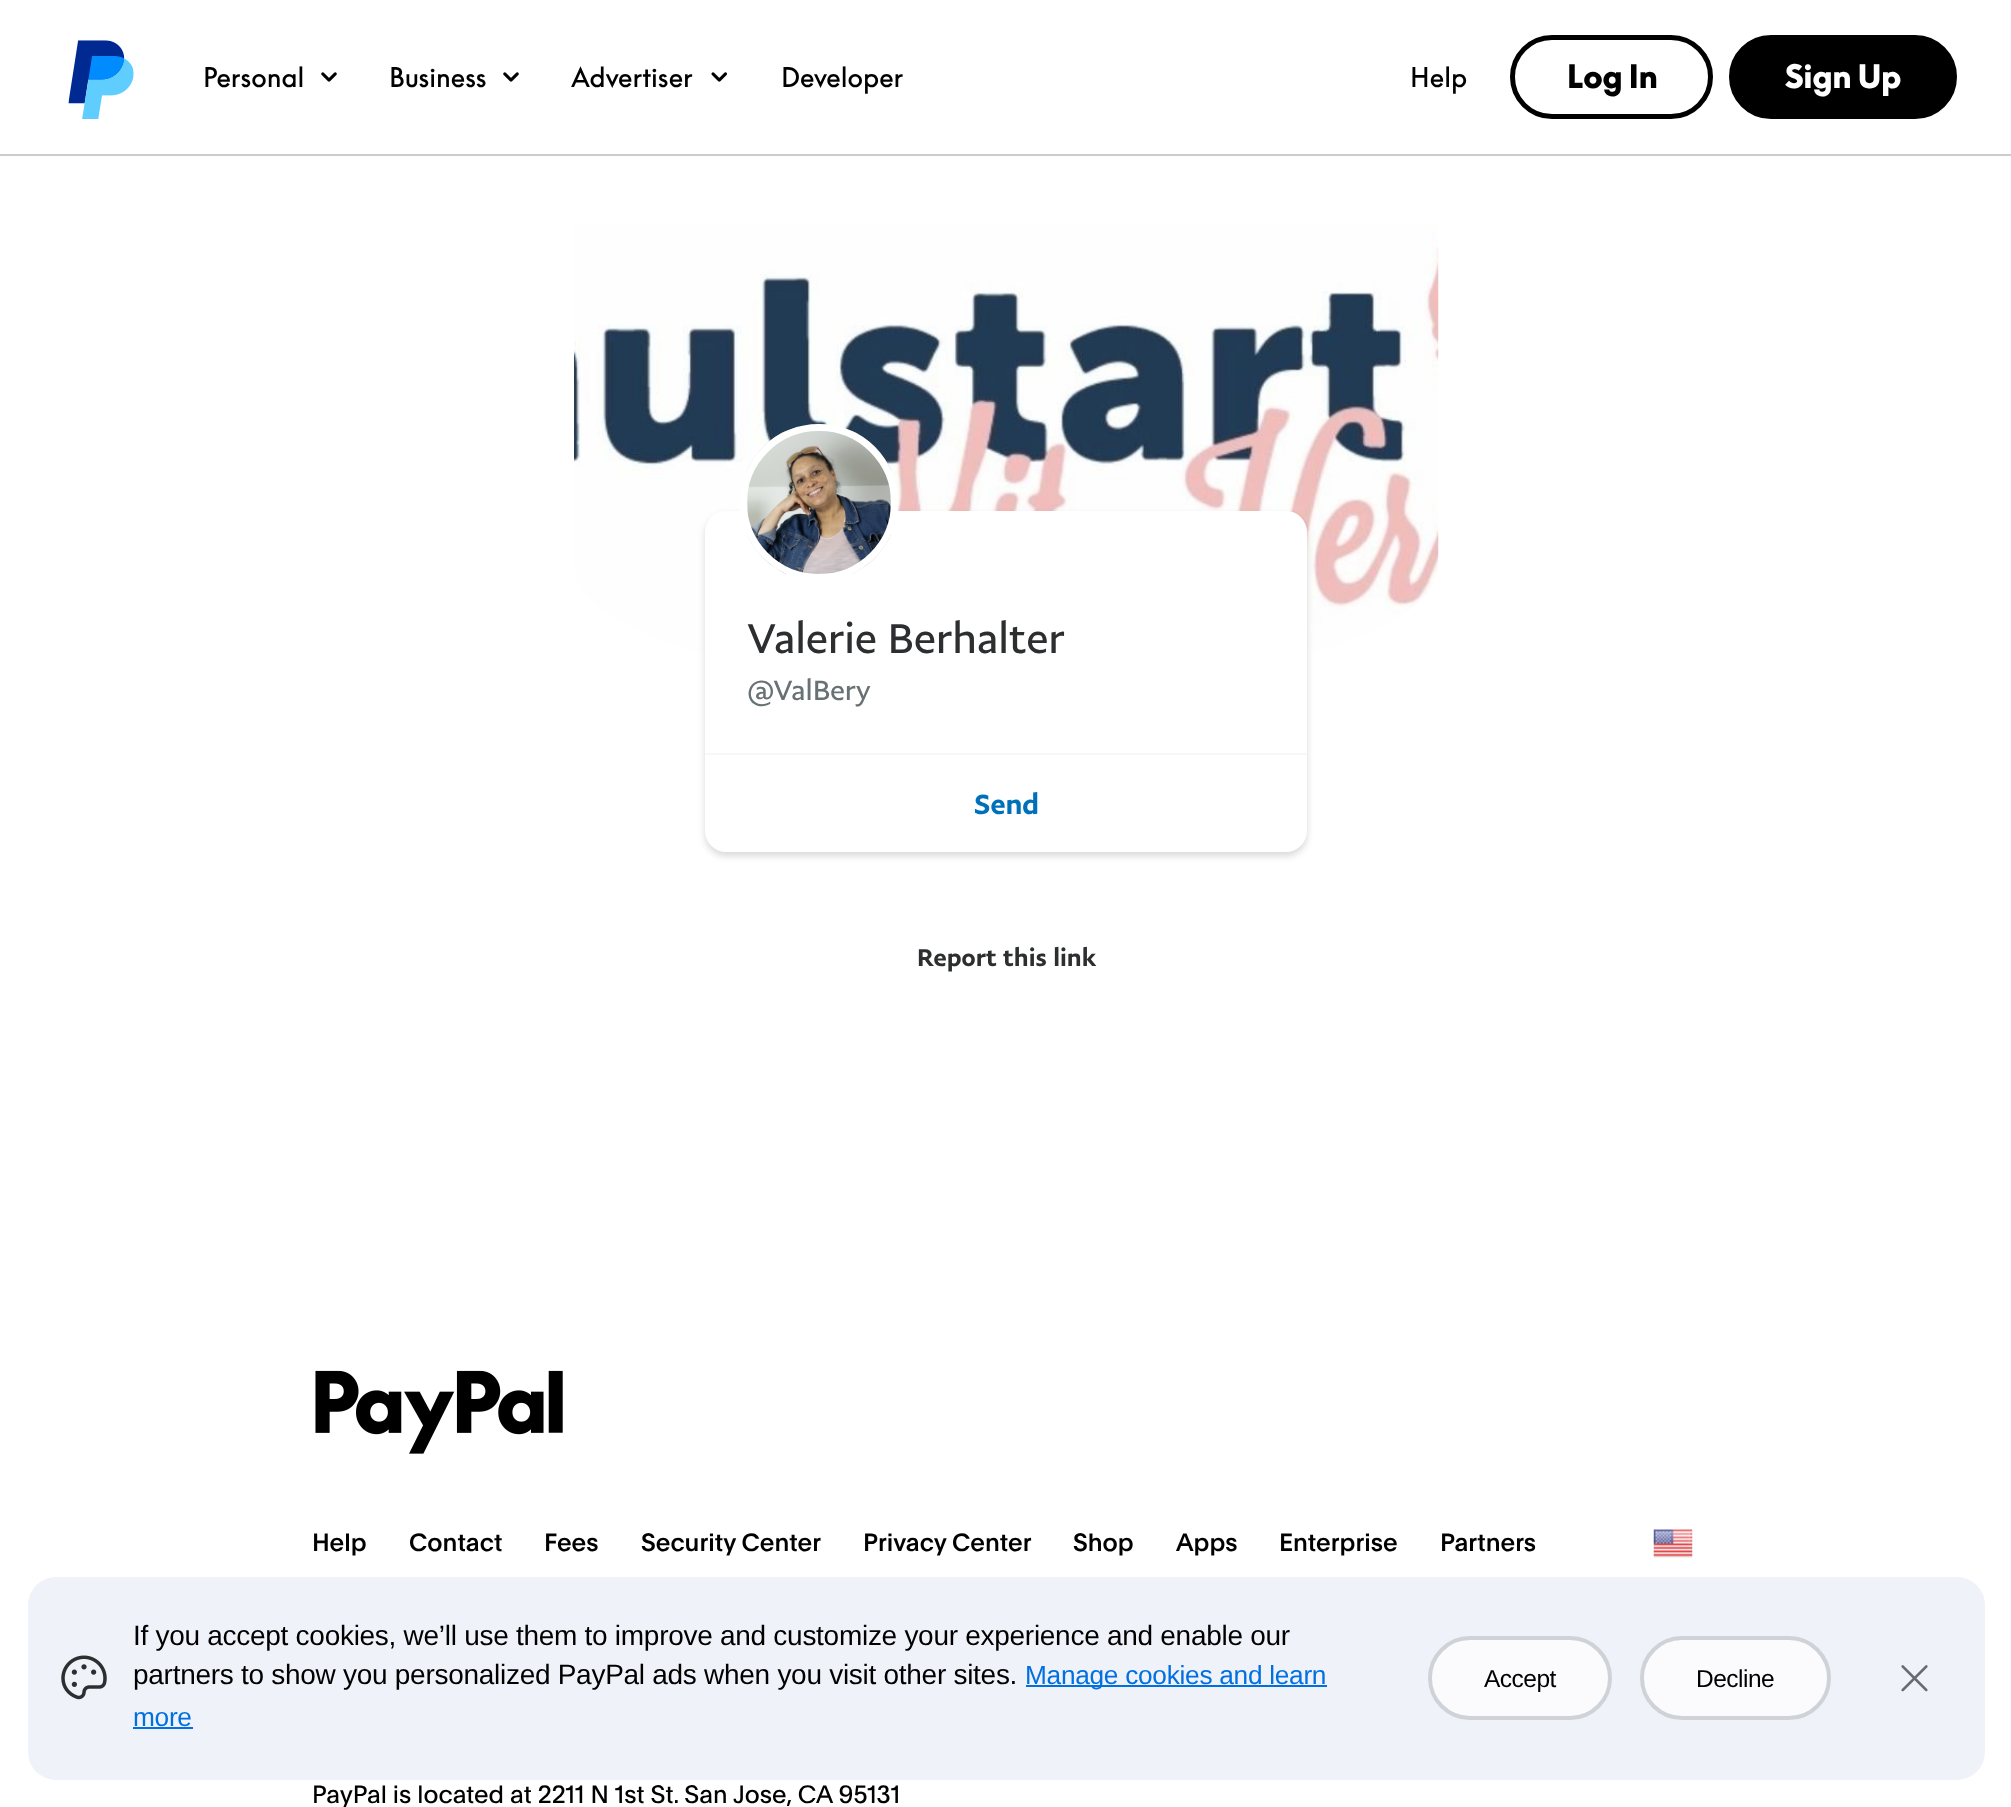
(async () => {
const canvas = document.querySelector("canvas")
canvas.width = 2011
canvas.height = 1807
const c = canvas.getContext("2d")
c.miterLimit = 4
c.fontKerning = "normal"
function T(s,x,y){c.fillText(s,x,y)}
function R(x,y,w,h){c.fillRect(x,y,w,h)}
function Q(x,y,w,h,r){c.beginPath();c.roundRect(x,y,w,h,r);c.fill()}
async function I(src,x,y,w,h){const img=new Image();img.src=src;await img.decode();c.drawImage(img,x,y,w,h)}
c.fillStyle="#fff"
R(0,0,2011,1807)
await I("1.png",68,40,66,79)
c.font="26.5px 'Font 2'"
c.fillStyle="#000"
T("Personal",203,87)
await I("2.png",321,72,16,10)
T("Business",389,87)
await I("2.png",503,72,16,10)
T("Advertiser",571,87)
await I("3.png",711,72,16,10)
T("Developer",781,87)
T("Help",1410,87)
c.beginPath()
c.roundRect(1512.5,37.5,198,79,39.5)
c.strokeStyle="#000"
c.lineWidth=5
c.stroke()
c.font="900 31.5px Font"
T("Log In",1567,88)
c.beginPath()
c.roundRect(1731.5,37.5,223,79,39.5)
c.fill()
c.stroke()
c.fillStyle="#fff"
T("Sign Up",1785,88)
c.fillStyle="#ccc"
R(0,154,2011,2)
await I("4.png",574,223,865,431)
c.fillStyle="#00000026"
c.filter="blur(3.5px)"
c.beginPath()
c.roundRect(705,515,602,341,21)
c.fill()
c.filter="none"
c.fillStyle="#fff"
Q(705,511,602,341,21)
await I("5.png",747,430,144,144)
c.beginPath()
c.roundRect(743.5,427.5,151,150,75)
c.strokeStyle="#fff"
c.lineWidth=7
c.stroke()
c.font="42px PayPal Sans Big"
c.fillStyle="#2c2e2f"
T("Valerie Berhalter",747,653)
c.font="28px PayPal Sans Big"
c.fillStyle="#687173"
T("@ValBery",747,700)
c.fillStyle="#f5f7fa"
R(705,753,602,2)
c.font="500 28px PayPal Sans Big"
c.fillStyle="#0070ba"
T("Send",974,814)
c.font="500 24.5px PayPal Sans Big"
c.fillStyle="#2c2e2f"
T("Report this link",917,966)
await I("6.png",315,1370,248,84)
c.font="500 24.5px Font"
c.fillStyle="#000"
T("Help",312,1551)
T("Contact",409,1551)
T("Fees",544,1551)
T("Security Center",641,1551)
T("Privacy Center",863,1551)
T("Shop",1073,1551)
T("Apps",1176,1551)
T("Enterprise",1279,1551)
T("Partners",1440,1551)
await I("7.png",1653,1529,40,29)
c.font="24.5px Font"
T("PayPal is located at 2211 N 1st St. San Jose, CA 95131",312,1803)
c.fillStyle="#f0f2f9"
Q(28,1577,1957,203,28)
await I("8.png",61,1655,46,45)
c.letterSpacing="-0.28px"
c.font="28px Liberation Sans"
c.fillStyle="#000"
T("If you accept cookies, we’ll use them to improve and customize your experience and enable our",133,1645)
T("partners to show you personalized PayPal ads when you visit other sites.",133,1684)
c.fillStyle="#0070e0"
R(1026,1685,301,2)
c.font="26.25px Liberation Sans"
T("Manage cookies and learn",1025,1684)
T("more",133,1726)
R(133,1727,60,2)
c.fillStyle="#fbfbfd"
c.beginPath()
c.roundRect(1430,1638,180,80,40)
c.fill()
c.strokeStyle="#cfd3d8"
c.lineWidth=4
c.stroke()
c.letterSpacing="-0.5px"
c.font="24.5px Liberation Sans"
c.fillStyle="#000"
T("Accept",1484,1687)
c.fillStyle="#fbfbfd"
c.beginPath()
c.roundRect(1642,1638,187,80,40)
c.fill()
c.stroke()
c.fillStyle="#000"
T("Decline",1696,1687)
await I("9.png",1901,1665,27,27)
})()
